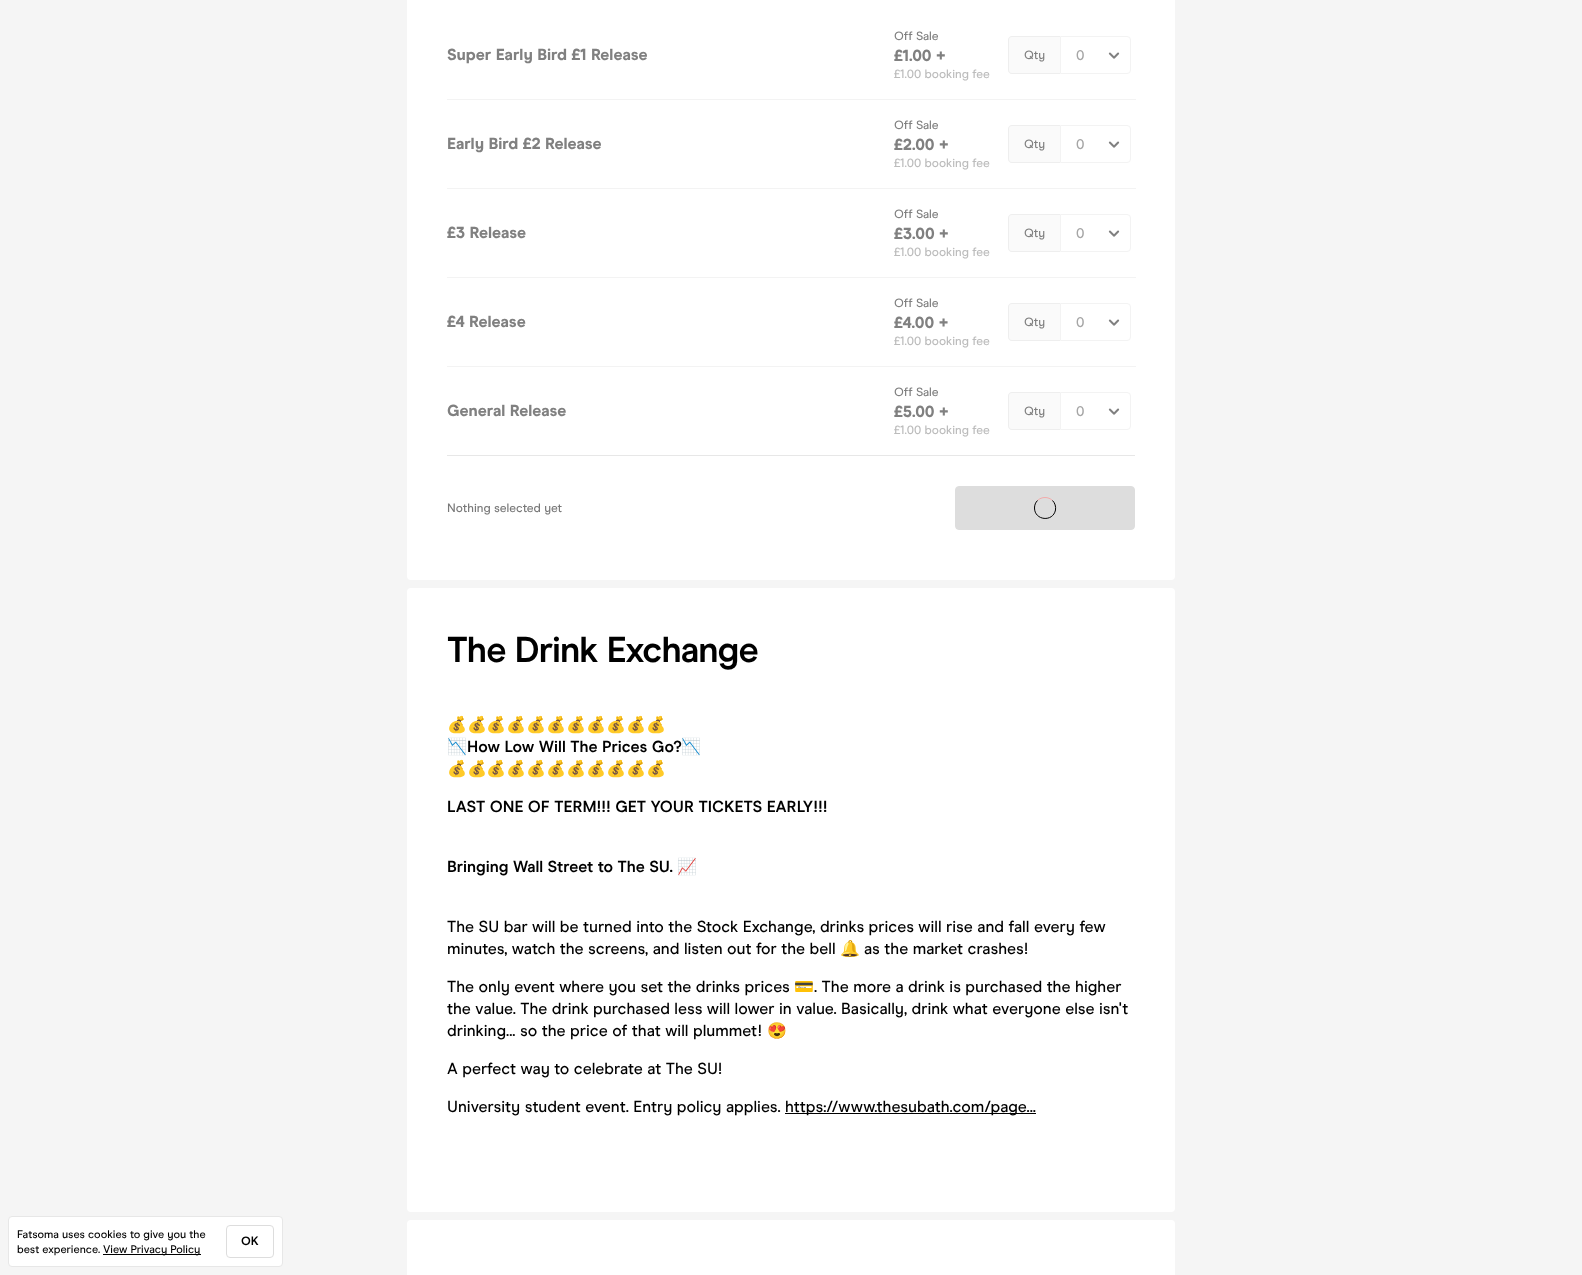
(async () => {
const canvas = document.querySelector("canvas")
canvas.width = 1582
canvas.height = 1275
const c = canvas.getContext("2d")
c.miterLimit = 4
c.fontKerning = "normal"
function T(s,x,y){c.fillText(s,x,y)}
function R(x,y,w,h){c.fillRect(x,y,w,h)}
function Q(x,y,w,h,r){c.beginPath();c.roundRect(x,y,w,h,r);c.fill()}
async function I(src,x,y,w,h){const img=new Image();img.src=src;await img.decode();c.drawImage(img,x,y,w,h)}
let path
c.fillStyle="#f5f5f5"
R(0,0,1582,1275)
c.fillStyle="#fff"
Q(407,-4,768,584,4)
c.fillStyle="#e7e7e7"
R(447,455,688,1)
c.font="800 16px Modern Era"
c.fillStyle="#808080"
T("Super Early Bird £1 Release",447,60)
c.font="500 12px Modern Era"
T("Off Sale",894,40)
c.font="800 16px Modern Era"
T("£1.00 +",894,61)
c.font="500 12px Modern Era"
c.fillStyle="#bcbcbc"
T("£1.00 booking fee",894,78)
c.fillStyle="#fafafa"
c.beginPath()
c.roundRect(1008,36,52,38,[4,0,0,4])
c.fill()
c.fillStyle="#eee"
path = new Path2D("M1012 36h48v38h-48c-2 0-4-2-4-4v-30c0-2 2-4 4-4zm0 1h48v36h-48c-2 0-3-1-3-3v-30c0-2 1-3 3-3z")
c.fill(path,"evenodd")
c.fillStyle="#808080"
T("Qty",1024,59)
c.beginPath()
c.roundRect(1060.5,36.5,70,37,[0,3.5,3.5,0])
c.strokeStyle="#f3f3f3"
c.stroke()
c.font="500 14px Modern Era"
c.fillStyle="#a6a6a6"
T("0",1076,60)
await I("1.png",1108,52,12,7)
c.fillStyle="#f3f3f3"
R(447,99,689,1)
c.font="800 16px Modern Era"
c.fillStyle="#808080"
T("Early Bird £2 Release",447,149)
c.font="500 12px Modern Era"
T("Off Sale",894,129)
c.font="800 16px Modern Era"
T("£2.00 +",894,150)
c.font="500 12px Modern Era"
c.fillStyle="#bcbcbc"
T("£1.00 booking fee",894,167)
c.fillStyle="#fafafa"
c.beginPath()
c.roundRect(1008,125,52,38,[4,0,0,4])
c.fill()
c.fillStyle="#eee"
path = new Path2D("M1012 125h48v38h-48c-2 0-4-2-4-4v-30c0-2 2-4 4-4zm0 1h48v36h-48c-2 0-3-1-3-3v-30c0-2 1-3 3-3z")
c.fill(path,"evenodd")
c.fillStyle="#808080"
T("Qty",1024,148)
c.beginPath()
c.roundRect(1060.5,125.5,70,37,[0,3.5,3.5,0])
c.stroke()
c.font="500 14px Modern Era"
c.fillStyle="#a6a6a6"
T("0",1076,149)
await I("1.png",1108,141,12,7)
c.fillStyle="#f3f3f3"
R(447,188,689,1)
c.font="800 16px Modern Era"
c.fillStyle="#808080"
T("£3 Release",447,238)
c.font="500 12px Modern Era"
T("Off Sale",894,218)
c.font="800 16px Modern Era"
T("£3.00 +",894,239)
c.font="500 12px Modern Era"
c.fillStyle="#bcbcbc"
T("£1.00 booking fee",894,256)
c.fillStyle="#fafafa"
c.beginPath()
c.roundRect(1008,214,52,38,[4,0,0,4])
c.fill()
c.fillStyle="#eee"
path = new Path2D("M1012 214h48v38h-48c-2 0-4-2-4-4v-30c0-2 2-4 4-4zm0 1h48v36h-48c-2 0-3-1-3-3v-30c0-2 1-3 3-3z")
c.fill(path,"evenodd")
c.fillStyle="#808080"
T("Qty",1024,237)
c.beginPath()
c.roundRect(1060.5,214.5,70,37,[0,3.5,3.5,0])
c.stroke()
c.font="500 14px Modern Era"
c.fillStyle="#a6a6a6"
T("0",1076,238)
await I("1.png",1108,230,12,7)
c.fillStyle="#f3f3f3"
R(447,277,689,1)
c.font="800 16px Modern Era"
c.fillStyle="#808080"
T("£4 Release",447,327)
c.font="500 12px Modern Era"
T("Off Sale",894,307)
c.font="800 16px Modern Era"
T("£4.00 +",894,328)
c.font="500 12px Modern Era"
c.fillStyle="#bcbcbc"
T("£1.00 booking fee",894,345)
c.fillStyle="#fafafa"
c.beginPath()
c.roundRect(1008,303,52,38,[4,0,0,4])
c.fill()
c.fillStyle="#eee"
path = new Path2D("M1012 303h48v38h-48c-2 0-4-2-4-4v-30c0-2 2-4 4-4zm0 1h48v36h-48c-2 0-3-1-3-3v-30c0-2 1-3 3-3z")
c.fill(path,"evenodd")
c.fillStyle="#808080"
T("Qty",1024,326)
c.beginPath()
c.roundRect(1060.5,303.5,70,37,[0,3.5,3.5,0])
c.stroke()
c.font="500 14px Modern Era"
c.fillStyle="#a6a6a6"
T("0",1076,327)
await I("1.png",1108,319,12,7)
c.fillStyle="#f3f3f3"
R(447,366,689,1)
c.font="800 16px Modern Era"
c.fillStyle="#808080"
T("General Release",447,416)
c.font="500 12px Modern Era"
T("Off Sale",894,396)
c.font="800 16px Modern Era"
T("£5.00 +",894,417)
c.font="500 12px Modern Era"
c.fillStyle="#bcbcbc"
T("£1.00 booking fee",894,434)
c.fillStyle="#fafafa"
c.beginPath()
c.roundRect(1008,392,52,38,[4,0,0,4])
c.fill()
c.fillStyle="#eee"
path = new Path2D("M1012 392h48v38h-48c-2 0-4-2-4-4v-30c0-2 2-4 4-4zm0 1h48v36h-48c-2 0-3-1-3-3v-30c0-2 1-3 3-3z")
c.fill(path,"evenodd")
c.fillStyle="#808080"
T("Qty",1024,415)
c.beginPath()
c.roundRect(1060.5,392.5,70,37,[0,3.5,3.5,0])
c.stroke()
c.font="500 14px Modern Era"
c.fillStyle="#a6a6a6"
T("0",1076,416)
await I("1.png",1108,408,12,7)
c.font="500 12px Modern Era"
c.fillStyle="#797979"
T("Nothing selected yet",447,512)
c.fillStyle="#ddd"
c.beginPath()
c.roundRect(955.5,486.5,179,43,3.5)
c.fill()
c.strokeStyle="#ddd"
c.stroke()
path = new Path2D("M1037.5 500.5c4-4 11-4 15 0")
c.strokeStyle="#f2abab"
c.stroke(path)
path = new Path2D("M1052.5 500.5c2.5 2.5 3.5 6 3 9.5c-2.5 12.5-21 10.5-21-2c0-3 1-5.5 3-7.5")
c.strokeStyle="#000"
c.stroke(path)
c.fillStyle="#fff"
Q(407,588,768,624,4)
c.letterSpacing="-1px"
c.font="bold 36px Modern Era"
c.fillStyle="#000"
T("The Drink Exchange",447,662)
c.letterSpacing="0px"
c.font="bold 16px Noto Color Emoji"
T("💰💰💰💰💰💰💰💰💰💰💰",447,730)
T("📉",447,752)
c.font="bold 16px Modern Era"
T("How Low Will The Prices Go?",467,752)
c.font="bold 16px Noto Color Emoji"
T("📉",681,752)
T("💰💰💰💰💰💰💰💰💰💰💰",447,774)
c.font="bold 16px Modern Era"
T("LAST ONE OF TERM!!! GET YOUR TICKETS EARLY!!!",447,812)
T("Bringing Wall Street to The SU.",447,872)
c.font="bold 16px Noto Color Emoji"
T("📈",677,872)
c.font="500 16px Modern Era"
T("The SU bar will be turned into the Stock Exchange, drinks prices will rise and fall every few",447,932)
T("minutes, watch the screens, and listen out for the bell",447,954)
c.font="16px Noto Color Emoji"
T("🔔",840,954)
c.font="500 16px Modern Era"
T("as the market crashes!",864,954)
T("The only event where you set the drinks prices",447,992)
c.font="16px Noto Color Emoji"
T("💳",794,992)
c.font="500 16px Modern Era"
T(". The more a drink is purchased the higher",814,992)
T("the value. The drink purchased less will lower in value. Basically, drink what everyone else isn't",447,1014)
T("drinking... so the price of that will plummet!",447,1036)
c.font="16px Noto Color Emoji"
T("😍",767,1036)
c.font="500 16px Modern Era"
T("A perfect way to celebrate at The SU!",447,1074)
T("University student event. Entry policy applies.",447,1112)
R(785,1113,251,1)
T("https://www.thesubath.com/page...",785,1112)
c.fillStyle="#fff"
Q(407,1220,768,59,4)
c.beginPath()
c.roundRect(8.5,1216.5,274,50,3.5)
c.fill()
c.strokeStyle="#e7e7e7"
c.stroke()
c.font="500 11px Modern Era"
c.fillStyle="#000"
T("Fatsoma uses cookies to give you the",17,1238)
T("best experience.",17,1253)
R(103,1254,98,1)
T("View Privacy Policy",103,1253)
c.beginPath()
c.roundRect(226.5,1225.5,47,32,3.5)
c.strokeStyle="#ddd"
c.stroke()
c.font="bold 12px Modern Era"
T("OK",241,1245)
})()
